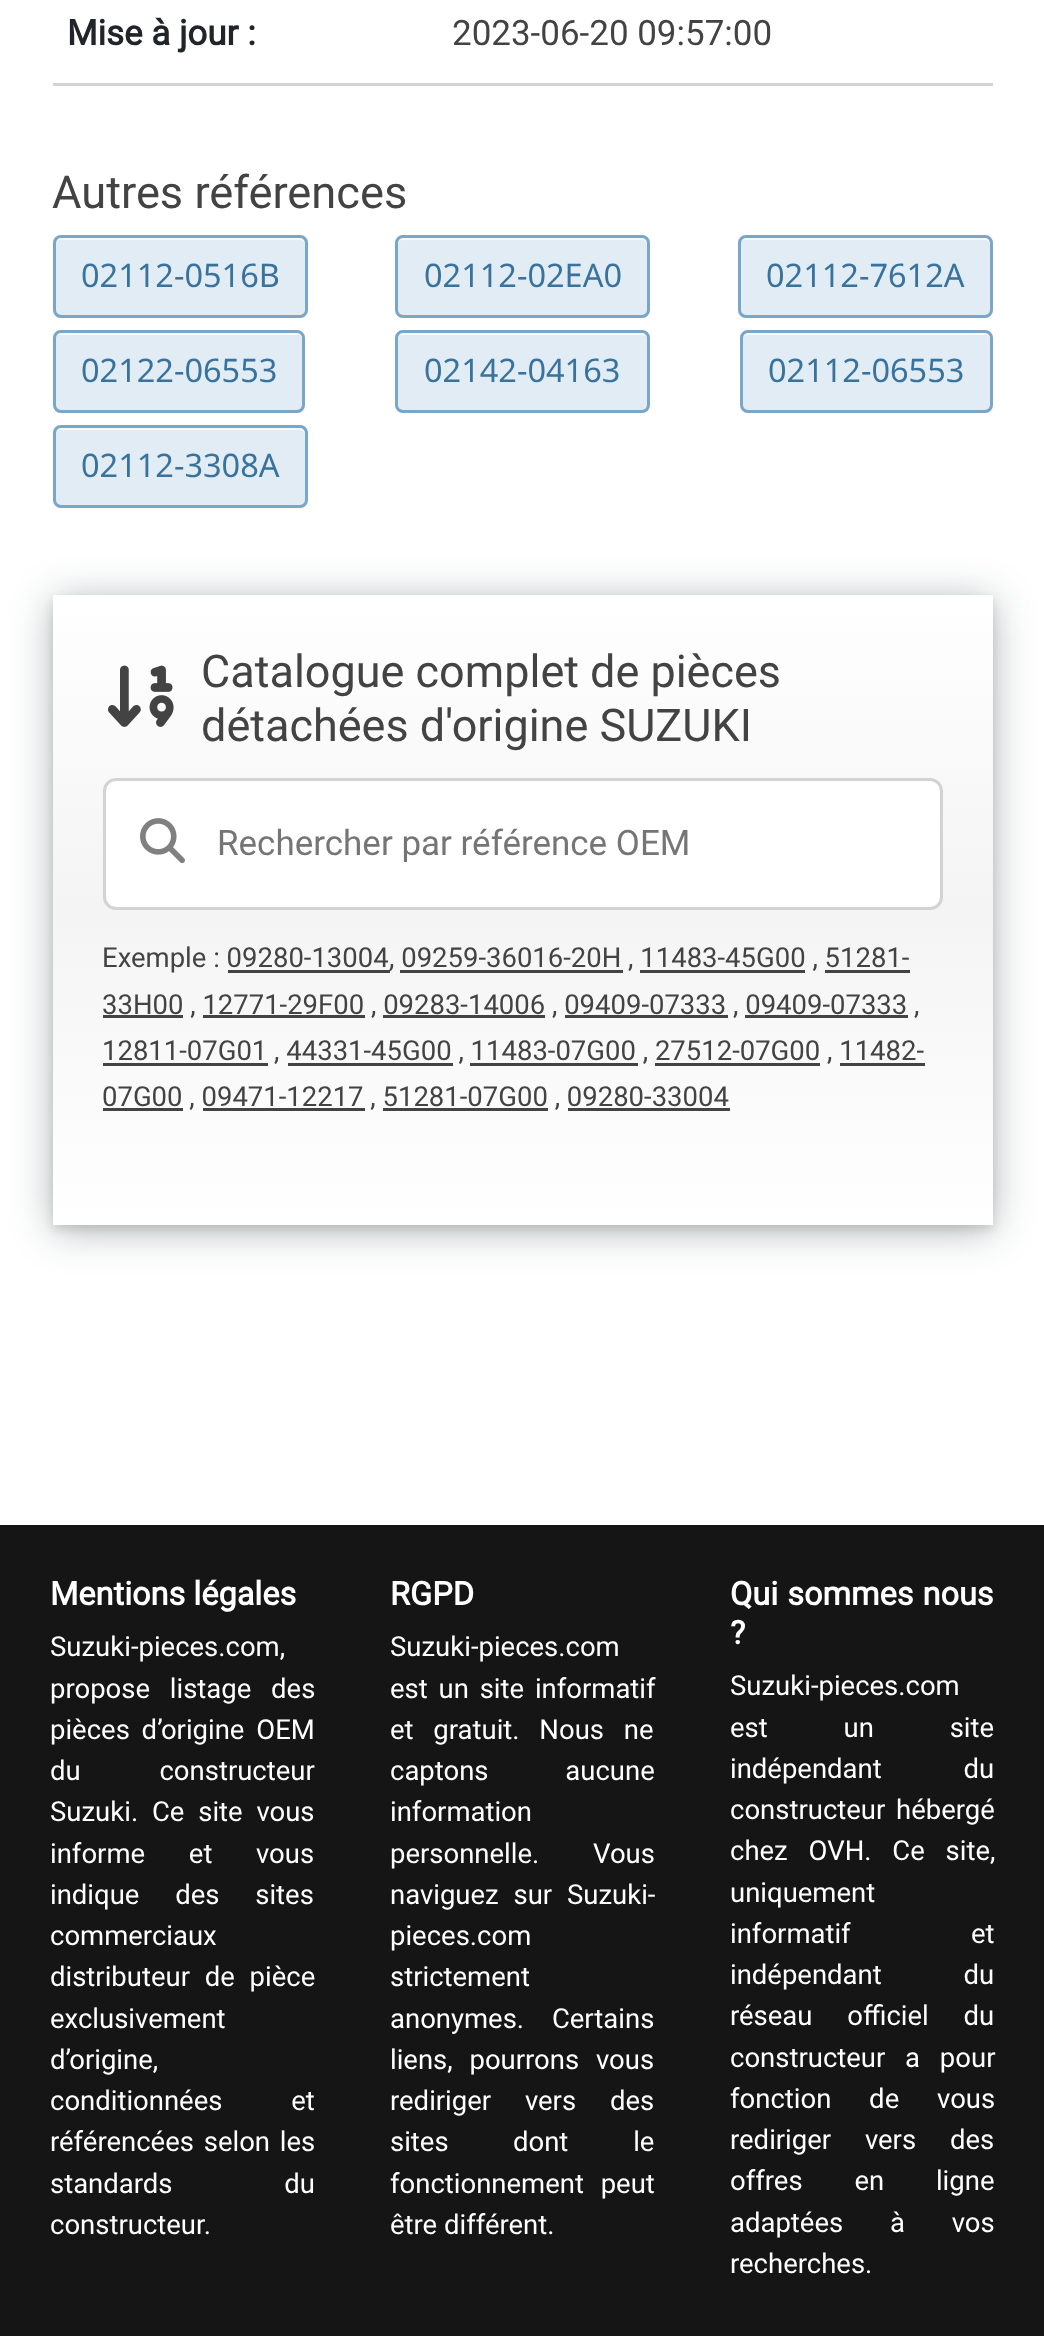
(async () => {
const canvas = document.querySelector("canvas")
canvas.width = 1044
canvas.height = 2336
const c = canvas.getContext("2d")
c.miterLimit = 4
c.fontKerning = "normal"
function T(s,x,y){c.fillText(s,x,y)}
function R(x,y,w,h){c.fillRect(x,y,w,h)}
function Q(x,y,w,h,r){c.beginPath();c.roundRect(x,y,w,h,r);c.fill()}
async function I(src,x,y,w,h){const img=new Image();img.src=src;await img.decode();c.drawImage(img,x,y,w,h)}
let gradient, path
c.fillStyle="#fff"
R(0,0,1044,2336)
c.fillStyle="#d3d3d3"
R(53,83,940,3)
c.font="bold 35px Roboto"
c.fillStyle="#212529"
T("Mise à jour :",67,45)
c.font="35px Roboto"
c.fillStyle="#434343"
T("2023-06-20 09:57:00",452,45)
c.font="45.25px Roboto"
T("Autres références",52,208)
c.fillStyle="#e1ecf4"
Q(53,235,255,83,8)
c.fillStyle="#f6f9fc"
path = new Path2D("M60 240h240c3 0 5 2 5 5c0-3-1-7-5-7h-241c-4 1-4 4-4 7c0-3 2-5 5-5z")
c.fill(path)
c.beginPath()
c.roundRect(54.5,236.5,252,80,6.5)
c.strokeStyle="#7aa7c7"
c.lineWidth=3
c.stroke()
c.font="32.5px Noto Sans"
c.fillStyle="#39739d"
T("02112-0516B",81,287)
c.fillStyle="#e1ecf4"
Q(395,235,255,83,8)
c.fillStyle="#f6f9fc"
path = new Path2D("M402 240h240c3 0 6 2 6 5c0-3 0-6-4-7h-241c-4 0-5 4-5 7c0-3 2-5 4-5z")
c.fill(path)
c.beginPath()
c.roundRect(396.5,236.5,252,80,6.5)
c.stroke()
c.fillStyle="#39739d"
T("02112-02EA0",424,287)
c.fillStyle="#e1ecf4"
Q(738,235,255,83,8)
c.fillStyle="#f6f9fc"
path = new Path2D("M745 240h240c3 0 5 2 5 5c0-3 0-6-4-7h-241c-4 0-5 4-5 7c0-3 2-5 5-5z")
c.fill(path)
c.beginPath()
c.roundRect(739.5,236.5,252,80,6.5)
c.stroke()
c.fillStyle="#39739d"
T("02112-7612A",766,287)
c.fillStyle="#e1ecf4"
Q(53,330,252,83,8)
c.fillStyle="#f6f9fc"
path = new Path2D("M60 335h238c2 0 4 2 4 5v68c1-1 1-2 1-3v-67c0-3-2-5-5-5h-238c-3 0-5 2-5 5v2c0-3 2-5 5-5z")
c.fill(path)
c.beginPath()
c.roundRect(54.5,331.5,249,80,6.5)
c.stroke()
c.fillStyle="#39739d"
T("02122-06553",81,382)
c.fillStyle="#e1ecf4"
Q(395,330,255,83,8)
c.fillStyle="#f6f9fc"
path = new Path2D("M402 335h240c3 0 6 2 6 5c0-3 0-6-4-7h-241c-4 0-5 4-5 7c0-3 2-5 4-5z")
c.fill(path)
c.beginPath()
c.roundRect(396.5,331.5,252,80,6.5)
c.stroke()
c.fillStyle="#39739d"
T("02142-04163",424,382)
c.fillStyle="#e1ecf4"
Q(740,330,253,83,8)
c.fillStyle="#f6f9fc"
path = new Path2D("M748 335h237c3 0 5 2 5 5v-2c0-3-2-5-5-5h-237c-2 0-5 2-5 4c1-1 3-2 5-2z")
c.fill(path)
c.beginPath()
c.roundRect(741.5,331.5,250,80,6.5)
c.stroke()
c.fillStyle="#39739d"
T("02112-06553",768,382)
c.fillStyle="#e1ecf4"
Q(53,425,255,83,8)
c.fillStyle="#f6f9fc"
path = new Path2D("M60 430h240c3 0 5 2 5 5c0-3-1-7-5-7h-241c-4 1-4 4-4 7c0-3 2-5 5-5z")
c.fill(path)
c.beginPath()
c.roundRect(54.5,426.5,252,80,6.5)
c.stroke()
c.fillStyle="#39739d"
T("02112-3308A",81,477)
c.fillStyle="#0e1e2552"
c.filter="blur(20px)"
c.beginPath()
c.rect(53,600,940,630)
c.fill()
c.filter="none"
c.fillStyle="#0e1e251f"
c.filter="blur(5px)"
c.beginPath()
c.rect(53,600,940,630)
c.fill()
c.filter="none"
gradient = c.createLinearGradient(523,1225,523,595)
gradient.addColorStop(0,"#fff")
gradient.addColorStop(.5,"#f4f4f4")
gradient.addColorStop(1,"#fff")
c.fillStyle = gradient
R(53,595,940,630)
await I("1.png",107,665,67,62)
c.font="45px Roboto"
c.fillStyle="#434343"
T("Catalogue complet de pièces",201,687)
T("détachées d'origine SUZUKI",201,741)
c.fillStyle="#fff"
c.beginPath()
c.roundRect(104.5,779.5,837,129,11.5)
c.fill()
c.strokeStyle="#d3d3d3"
c.stroke()
await I("2.png",140,818,45,46)
c.font="35px Roboto"
c.fillStyle="#757575"
T("Rechercher par référence OEM",217,855)
c.font="27.5px Roboto"
c.fillStyle="#434343"
T("Exemple : 09280-13004",102,967)
R(228,970,162,3)
T(", 09259-36016-20H , 11483-45G00 , 51281-",389,967)
R(400,970,223,3)
R(640,970,165,3)
R(825,970,85,3)
R(103,1015,80,3)
T("33H00 , 12771-29F00 , 09283-14006 , 09409-07333 , 09409-07333 ,",102,1014)
R(203,1015,162,3)
R(383,1015,162,3)
R(565,1015,163,3)
R(745,1015,163,3)
R(103,1063,165,3)
T("12811-07G01 , 44331-45G00 , 11483-07G00 , 27512-07G00 , 11482-",102,1060)
R(288,1063,165,3)
R(470,1063,168,3)
R(655,1063,165,3)
R(840,1063,85,3)
R(103,1108,80,3)
T("07G00 , 09471-12217 , 51281-07G00 , 09280-33004",102,1106)
R(203,1108,162,3)
R(383,1108,165,3)
R(568,1108,162,3)
c.fillStyle="#151515"
R(0,1525,1044,811)
c.font="bold 32.5px Roboto"
c.fillStyle="#fff"
T("Mentions légales",50,1605)
c.font="27.5px Roboto"
T("Suzuki-pieces.com,",50,1656)
c.wordSpacing="13px"
T("propose listage des",50,1698)
c.wordSpacing="5px"
T("pièces d’origine OEM",50,1739)
c.wordSpacing="72px"
T("du constructeur",50,1780)
c.wordSpacing="7px"
T("Suzuki. Ce site vous",50,1821)
c.wordSpacing="37px"
T("informe et",50,1863)
c.wordSpacing="0px"
T("vous",256,1863)
c.wordSpacing="29px"
T("indique des sites",50,1904)
c.wordSpacing="0px"
T("commerciaux",50,1945)
c.wordSpacing="8px"
T("distributeur de pièce",50,1986)
c.wordSpacing="0px"
T("exclusivement",50,2028)
T("d’origine,",50,2069)
c.wordSpacing="62px"
T("conditionnées et",50,2110)
c.wordSpacing="3px"
T("référencées selon les",50,2151)
c.wordSpacing="105px"
T("standards du",50,2193)
c.wordSpacing="0px"
T("constructeur.",50,2234)
c.font="bold 32.5px Roboto"
T("RGPD",390,1605)
c.font="27.5px Roboto"
T("Suzuki-pieces.com",390,1656)
c.wordSpacing="4px"
T("est un site informatif",390,1698)
c.wordSpacing="13px"
T("et gratuit. Nous ne",390,1739)
c.wordSpacing="70px"
T("captons aucune",390,1780)
c.wordSpacing="0px"
T("information",390,1821)
c.wordSpacing="47px"
T("personnelle. Vous",390,1863)
c.wordSpacing="8px"
T("naviguez sur Suzuki-",390,1904)
c.wordSpacing="0px"
T("pieces.com",390,1945)
T("strictement",390,1986)
c.wordSpacing="21px"
T("anonymes. Certains",390,2028)
c.wordSpacing="10px"
T("liens, pourrons vous",390,2069)
c.wordSpacing="27px"
T("rediriger vers des",390,2110)
c.wordSpacing="0px"
T("sites",390,2151)
c.wordSpacing="58px"
T("dont le",513,2151)
c.wordSpacing="10px"
T("fonctionnement peut",390,2193)
c.wordSpacing="0px"
T("être différent.",390,2234)
c.wordSpacing="1px"
c.font="bold 32.5px Roboto"
T("Qui sommes nous",730,1605)
c.wordSpacing="0px"
T("?",730,1644)
c.font="27.5px Roboto"
T("Suzuki-pieces.com",730,1695)
c.wordSpacing="69px"
T("est un site",730,1737)
c.wordSpacing="75px"
T("indépendant du",730,1778)
c.wordSpacing="4px"
T("constructeur hébergé",730,1819)
c.wordSpacing="14px"
T("chez OVH. Ce site,",730,1860)
c.wordSpacing="0px"
T("uniquement",730,1902)
T("informatif",730,1943)
T("et",971,1943)
c.wordSpacing="75px"
T("indépendant du",730,1984)
c.wordSpacing="28px"
T("réseau officiel du",730,2025)
c.wordSpacing="13px"
T("constructeur a pour",730,2067)
c.wordSpacing="31px"
T("fonction de vous",730,2108)
c.wordSpacing="27px"
T("rediriger vers des",730,2149)
c.wordSpacing="45px"
T("offres en ligne",730,2190)
c.wordSpacing="40px"
T("adaptées à vos",730,2232)
c.wordSpacing="0px"
T("recherches.",730,2273)
})()
